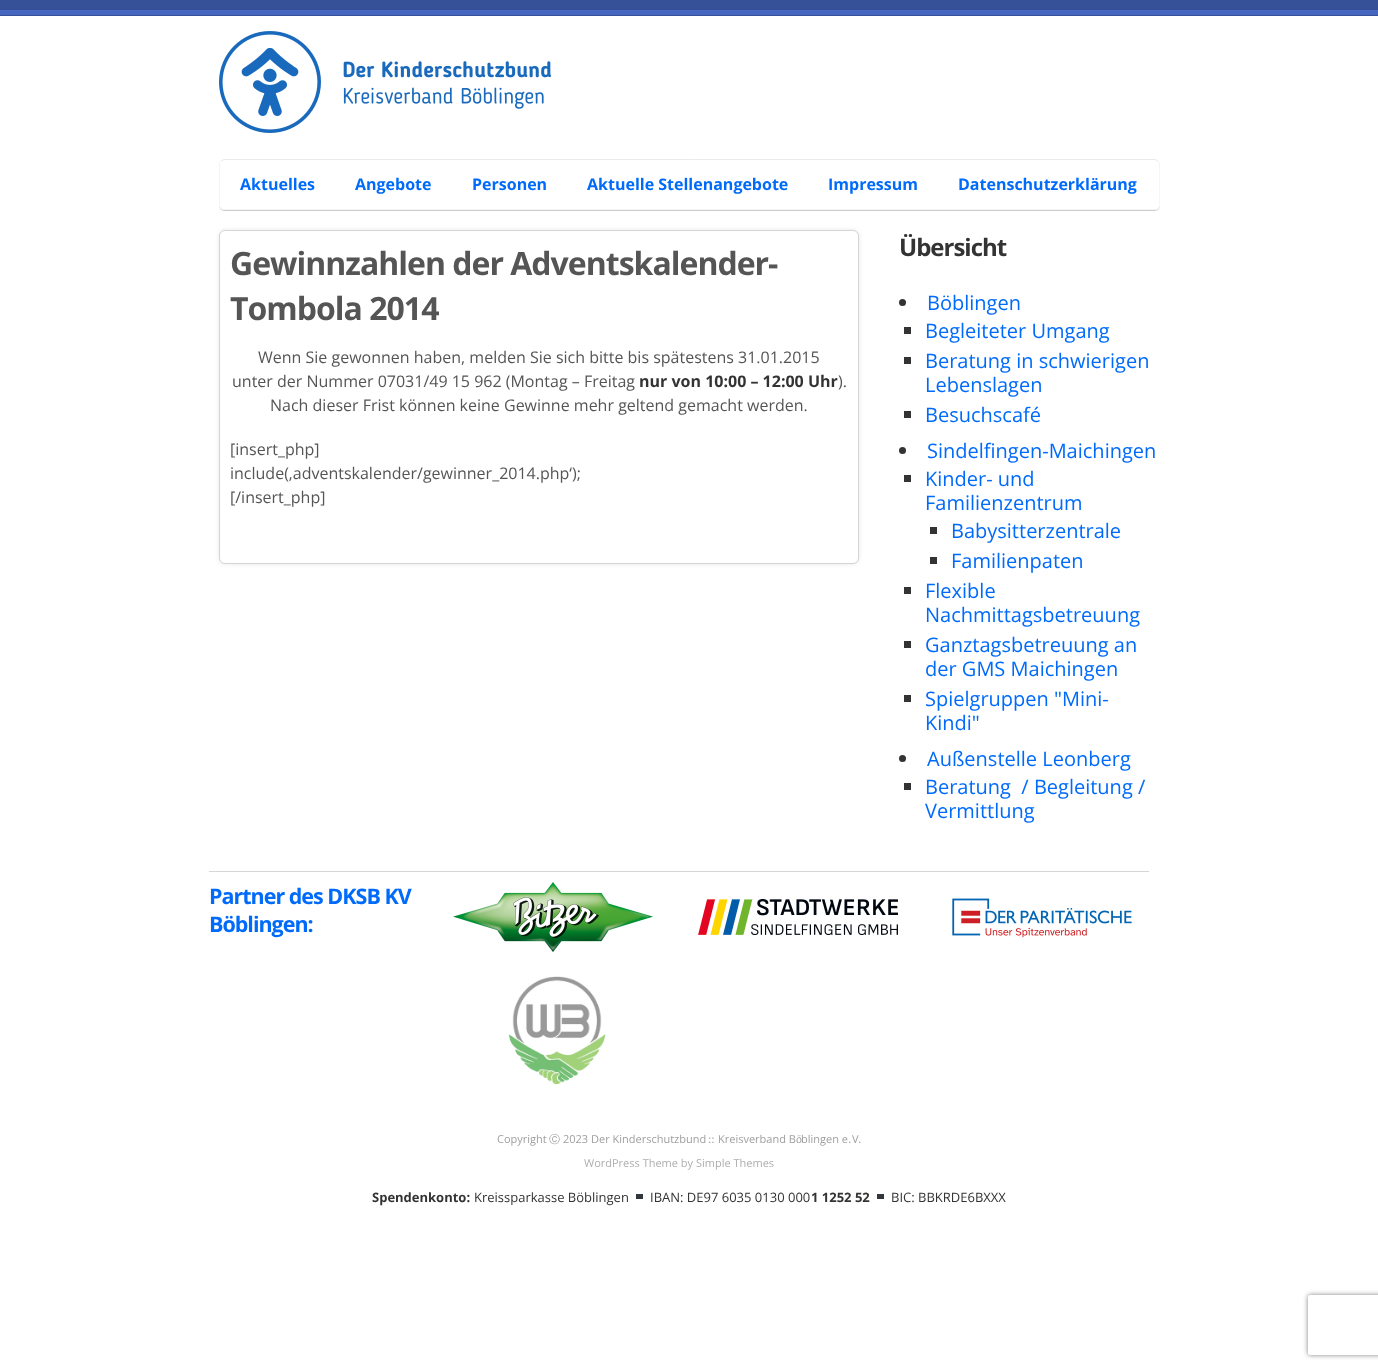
(async () => {
const canvas = document.querySelector("canvas")
canvas.width = 1378
canvas.height = 1369
const c = canvas.getContext("2d")
c.miterLimit = 4
c.fontKerning = "normal"
function T(s,x,y){c.fillText(s,x,y)}
function R(x,y,w,h){c.fillRect(x,y,w,h)}
async function I(src,x,y,w,h){const img=new Image();img.src=src;await img.decode();c.drawImage(img,x,y,w,h)}
let path
c.fillStyle="#fff"
R(0,0,1378,1369)
await I("1.png",0,0,1378,16)
await I("2.png",219,31,332,102)
c.save()
path = new Path2D("M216 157h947v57h-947zm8 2h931c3 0 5 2 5 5v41c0 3-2 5-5 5h-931c-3 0-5-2-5-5v-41c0-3 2-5 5-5z")
c.clip(path,"evenodd")
c.fillStyle="#00000033"
c.filter="blur(0.5px)"
c.beginPath()
c.roundRect(219,160,941,51,5)
c.fill()
c.filter="none"
c.restore()
path = new Path2D("M221 161l3-1.5h931l3 1.5")
c.strokeStyle="#eaeaea"
c.stroke(path)
path = new Path2D("M1158 161c1 .5 1.5 2 1.5 3v41c0 1-.5 2.5-1.5 3c-.5 1-2 1.5-3 1.5h-931c-1 0-2.5-.5-3-1.5c-1-.5-1.5-2-1.5-3v-41c0-1 .5-2.5 1.5-3")
c.strokeStyle="#f5f5f5"
c.stroke(path)
c.font="bold 16px Open Sans"
c.fillStyle="#006bfa"
T("Aktuelles",240,190)
T("Angebote",355,190)
T("Personen",472,190)
T("Aktuelle Stellenangebote",587,190)
T("Impressum",828,190)
T("Datenschutzerklärung",958,190)
c.fillStyle="#e6e6e6"
c.filter="blur(2px)"
c.beginPath()
c.roundRect(219,230,640,334,6)
c.fill()
c.filter="none"
c.fillStyle="#fff"
c.beginPath()
c.roundRect(219.5,230.5,639,333,5.5)
c.fill()
c.strokeStyle="#d5d5d5"
c.stroke()
c.letterSpacing="-1px"
c.font="bold 32px Open Sans"
c.fillStyle="#555"
T("Gewinnzahlen der Adventskalender-",230,275)
T("Tombola 2014",230,320)
c.letterSpacing="0px"
c.font="16px Open Sans"
T("Wenn Sie gewonnen haben, melden Sie sich bitte bis spätestens 31.01.2015",258,363)
T("unter der Nummer 07031/49 15 962 (Montag – Freitag",232,387)
c.font="bold 16px Open Sans"
c.fillStyle="#333"
T("nur von 10:00 – 12:00 Uhr",639,387)
c.font="16px Open Sans"
c.fillStyle="#555"
T(").",838,387)
T("Nach dieser Frist können keine Gewinne mehr geltend gemacht werden.",270,411)
T("[insert_php]",230,455)
T("include(‚adventskalender/gewinner_2014.php‘);",230,479)
T("[/insert_php]",230,503)
c.letterSpacing="-1px"
c.font="bold 24px Open Sans"
c.fillStyle="#333"
T("Übersicht",899,256)
c.beginPath()
c.arc(902.5,302.5,3.5,0,7)
c.fill()
c.letterSpacing="0px"
c.font="20px Open Sans"
c.fillStyle="#006bfa"
T("Böblingen",927,310)
c.fillStyle="#333"
R(904,327,7,7)
c.fillStyle="#006bfa"
T("Begleiteter Umgang",925,338)
c.fillStyle="#333"
R(904,357,7,7)
c.fillStyle="#006bfa"
T("Beratung in schwierigen",925,368)
T("Lebenslagen",925,392)
c.fillStyle="#333"
R(904,411,7,7)
c.fillStyle="#006bfa"
T("Besuchscafé",925,422)
c.fillStyle="#333"
c.beginPath()
c.arc(902.5,450.5,3.5,0,7)
c.fill()
c.fillStyle="#006bfa"
T("Sindelfingen-Maichingen",927,458)
c.fillStyle="#333"
R(904,475,7,7)
c.fillStyle="#006bfa"
T("Kinder- und",925,486)
T("Familienzentrum",925,510)
c.fillStyle="#333"
R(930,527,7,7)
c.fillStyle="#006bfa"
T("Babysitterzentrale",951,538)
c.fillStyle="#333"
R(930,557,7,7)
c.fillStyle="#006bfa"
T("Familienpaten",951,568)
c.fillStyle="#333"
R(904,587,7,7)
c.fillStyle="#006bfa"
T("Flexible",925,598)
T("Nachmittagsbetreuung",925,622)
c.fillStyle="#333"
R(904,641,7,7)
c.fillStyle="#006bfa"
T("Ganztagsbetreuung an",925,652)
T("der GMS Maichingen",925,676)
c.fillStyle="#333"
R(904,695,7,7)
c.fillStyle="#006bfa"
T("Spielgruppen \"Mini-",925,706)
T("Kindi\"",925,730)
c.fillStyle="#333"
c.beginPath()
c.arc(902.5,758.5,3.5,0,7)
c.fill()
c.fillStyle="#006bfa"
T("Außenstelle Leonberg",927,766)
c.fillStyle="#333"
R(904,783,7,7)
c.fillStyle="#006bfa"
T("Beratung  / Begleitung /",925,794)
T("Vermittlung",925,818)
c.fillStyle="#d6d6d6"
R(209,871,940,1)
c.letterSpacing="-1px"
c.font="bold 21.5px Open Sans"
c.fillStyle="#006bfa"
T("Partner des DKSB KV",209,904)
T("Böblingen:",209,932)
await I("3.png",453,882,200,70)
await I("4.png",508,976,98,109)
await I("5.png",698,899,200,36)
await I("6.png",952,898,180,40)
c.letterSpacing="0px"
c.font="11px Open Sans"
c.fillStyle="#9f9f9f"
T("Copyright",497,1143)
c.font="500 11px WenQuanYi Zen Hei"
T("Ⓒ",549,1143)
c.font="11px Open Sans"
T("2023 Der Kinderschutzbund",563,1143)
c.font="500 11px WenQuanYi Zen Hei"
T("::",708,1143)
c.font="11px Open Sans"
T("Kreisverband B",718,1143)
c.font="500 11px WenQuanYi Zen Hei"
T("ö",796,1143)
c.font="11px Open Sans"
T("blingen e",801,1143)
c.font="500 11px WenQuanYi Zen Hei"
T(".",848,1143)
c.font="11px Open Sans"
T("V",852,1143)
c.font="500 11px WenQuanYi Zen Hei"
T(".",858,1143)
c.font="11px Open Sans"
c.fillStyle="#aeaeae"
T("WordPress Theme by Simple Themes",584,1167)
c.font="bold 13px Open Sans"
c.fillStyle="#333"
T("Spendenkonto:",372,1202)
c.font="13px Open Sans"
T("Kreissparkasse Böblingen",474,1202)
c.fillStyle="#31373d"
R(636,1194,7,5)
c.fillStyle="#333"
T("IBAN: DE97 6035 0130 000",650,1202)
c.font="bold 13px Open Sans"
T("1 1252 52",811,1202)
c.fillStyle="#31373d"
R(877,1194,7,5)
c.font="13px Open Sans"
c.fillStyle="#333"
T("BIC: BBKRDE6BXXX",891,1202)
c.save()
path = new Path2D("M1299 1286h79v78h-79zm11 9h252c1 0 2 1 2 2v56c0 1-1 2-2 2h-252c-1 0-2-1-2-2v-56c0-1 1-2 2-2z")
c.clip(path,"evenodd")
c.fillStyle="#808080"
c.filter="blur(2.5px)"
c.beginPath()
c.roundRect(1308,1295,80,60,2)
c.fill()
c.filter="none"
c.restore()
})()
